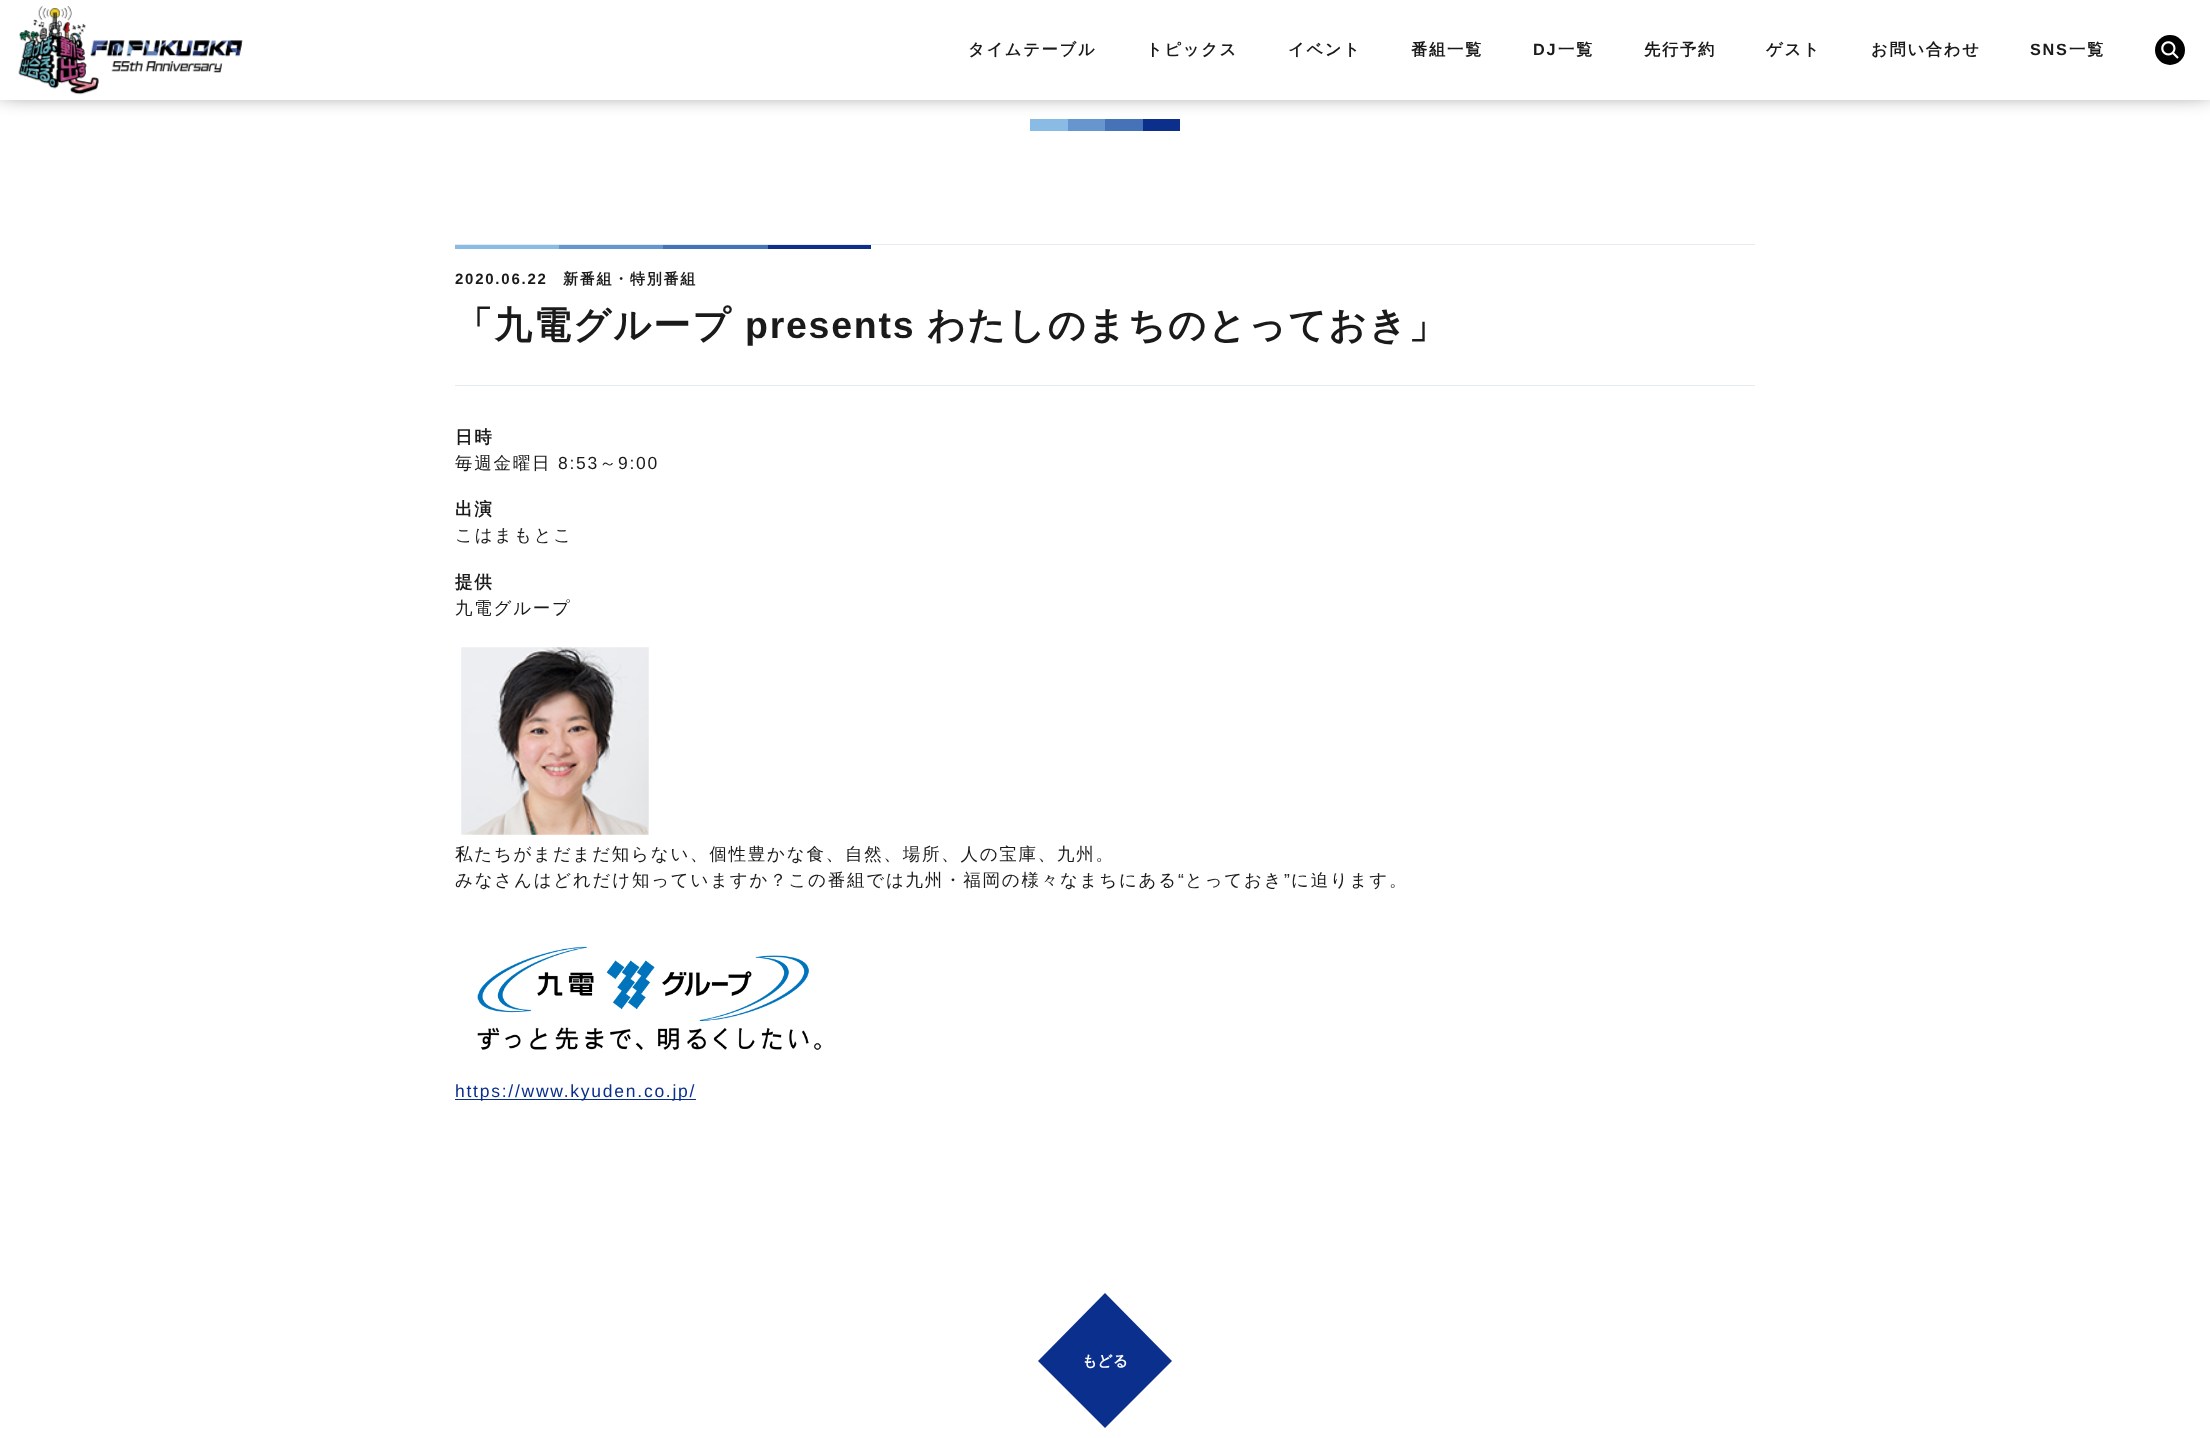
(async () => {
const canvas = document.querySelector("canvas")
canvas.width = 2210
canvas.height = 1438
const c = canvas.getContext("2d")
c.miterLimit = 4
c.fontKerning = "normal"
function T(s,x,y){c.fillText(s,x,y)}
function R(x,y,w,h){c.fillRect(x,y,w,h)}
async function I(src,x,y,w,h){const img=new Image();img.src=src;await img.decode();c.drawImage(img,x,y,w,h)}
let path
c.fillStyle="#fff"
R(0,0,2210,1438)
c.fillStyle="#8abbe5"
R(1030,119,38,12)
c.fillStyle="#6796cf"
R(1068,119,37,12)
c.fillStyle="#4673b8"
R(1105,119,38,12)
c.fillStyle="#0b2f8b"
R(1143,119,37,12)
c.fillStyle="#000"
c.filter="blur(12.5px)"
c.beginPath()
c.rect(0,-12,2210,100)
c.fill()
c.filter="none"
c.fillStyle="#fff"
R(0,0,2210,100)
await I("1.png",18,6,225,89)
c.letterSpacing="1.75px"
c.font="bold 16.25px WenQuanYi Zen Hei"
c.fillStyle="#1a1a1a"
T("タイムテーブル",968,55)
T("トピックス",1146,55)
T("イベント",1288,55)
T("番組一覧",1411,55)
c.font="bold 16.25px Liberation Sans"
T("DJ",1533,55)
c.font="bold 16.25px WenQuanYi Zen Hei"
T("一覧",1558,55)
T("先行予約",1644,55)
T("ゲスト",1766,55)
T("お問い合わせ",1871,55)
c.font="bold 16.25px Liberation Sans"
T("SNS",2030,55)
c.font="bold 16.25px WenQuanYi Zen Hei"
T("一覧",2069,55)
c.fillStyle="#000"
c.beginPath()
c.arc(2170,50,15,0,7)
c.fill()
await I("2.png",2161,41,18,18)
c.fillStyle="#e4ebf1"
R(455,244,1300,1)
R(455,385,1300,1)
c.fillStyle="#8abbe5"
R(455,245,104,4)
c.fillStyle="#6796cf"
R(559,245,104,4)
c.fillStyle="#4673b8"
R(663,245,105,4)
c.fillStyle="#0b2f8b"
R(768,245,103,4)
c.font="bold 15px Liberation Sans"
c.fillStyle="#1a1a1a"
T("2020.06.22",455,284)
c.font="bold 15px WenQuanYi Zen Hei"
T("新番組・特別番組",563,284)
c.font="bold 37.5px WenQuanYi Zen Hei"
T("「九電グループ",455,338)
c.font="bold 37.5px Liberation Sans"
T("presents",745,338)
c.font="bold 37.5px WenQuanYi Zen Hei"
T("わたしのまちのとっておき」",927,338)
c.font="bold 17.5px WenQuanYi Zen Hei"
T("日時",455,443)
c.font="500 17.5px WenQuanYi Zen Hei"
T("毎週金曜日",455,469)
c.font="17.5px Liberation Sans"
T("8:53",558,469)
c.font="500 17.5px WenQuanYi Zen Hei"
T("～",599,469)
c.font="17.5px Liberation Sans"
T("9:00",618,469)
c.font="bold 17.5px WenQuanYi Zen Hei"
T("出演",455,515)
c.font="500 17.5px WenQuanYi Zen Hei"
T("こはまもとこ",455,541)
c.font="bold 17.5px WenQuanYi Zen Hei"
T("提供",455,588)
c.font="500 17.5px WenQuanYi Zen Hei"
T("九電グループ",455,614)
await I("3.png",461,647,188,188)
T("私たちがまだまだ知らない、個性豊かな食、自然、場所、人の宝庫、九州。",455,860)
T("みなさんはどれだけ知っていますか？この番組では九州・福岡の様々なまちにある",455,886)
c.font="17.5px Liberation Sans"
T("“",1178,886)
c.font="500 17.5px WenQuanYi Zen Hei"
T("とっておき",1185,886)
c.font="17.5px Liberation Sans"
T("”",1284,886)
c.font="500 17.5px WenQuanYi Zen Hei"
T("に迫ります。",1291,886)
await I("4.png",477,946,345,105)
c.fillStyle="#092f8c"
R(455,1099,241,1)
c.font="17.5px Liberation Sans"
T("https://www.kyuden.co.jp/",455,1097)
c.fillStyle="#0a2f8c"
path = new Path2D("M1038 1361l67-68l67 68l-67 67z")
c.fill(path)
c.letterSpacing="0px"
c.font="bold 15px WenQuanYi Zen Hei"
c.fillStyle="#fff"
T("もどる",1082,1366)
})()
